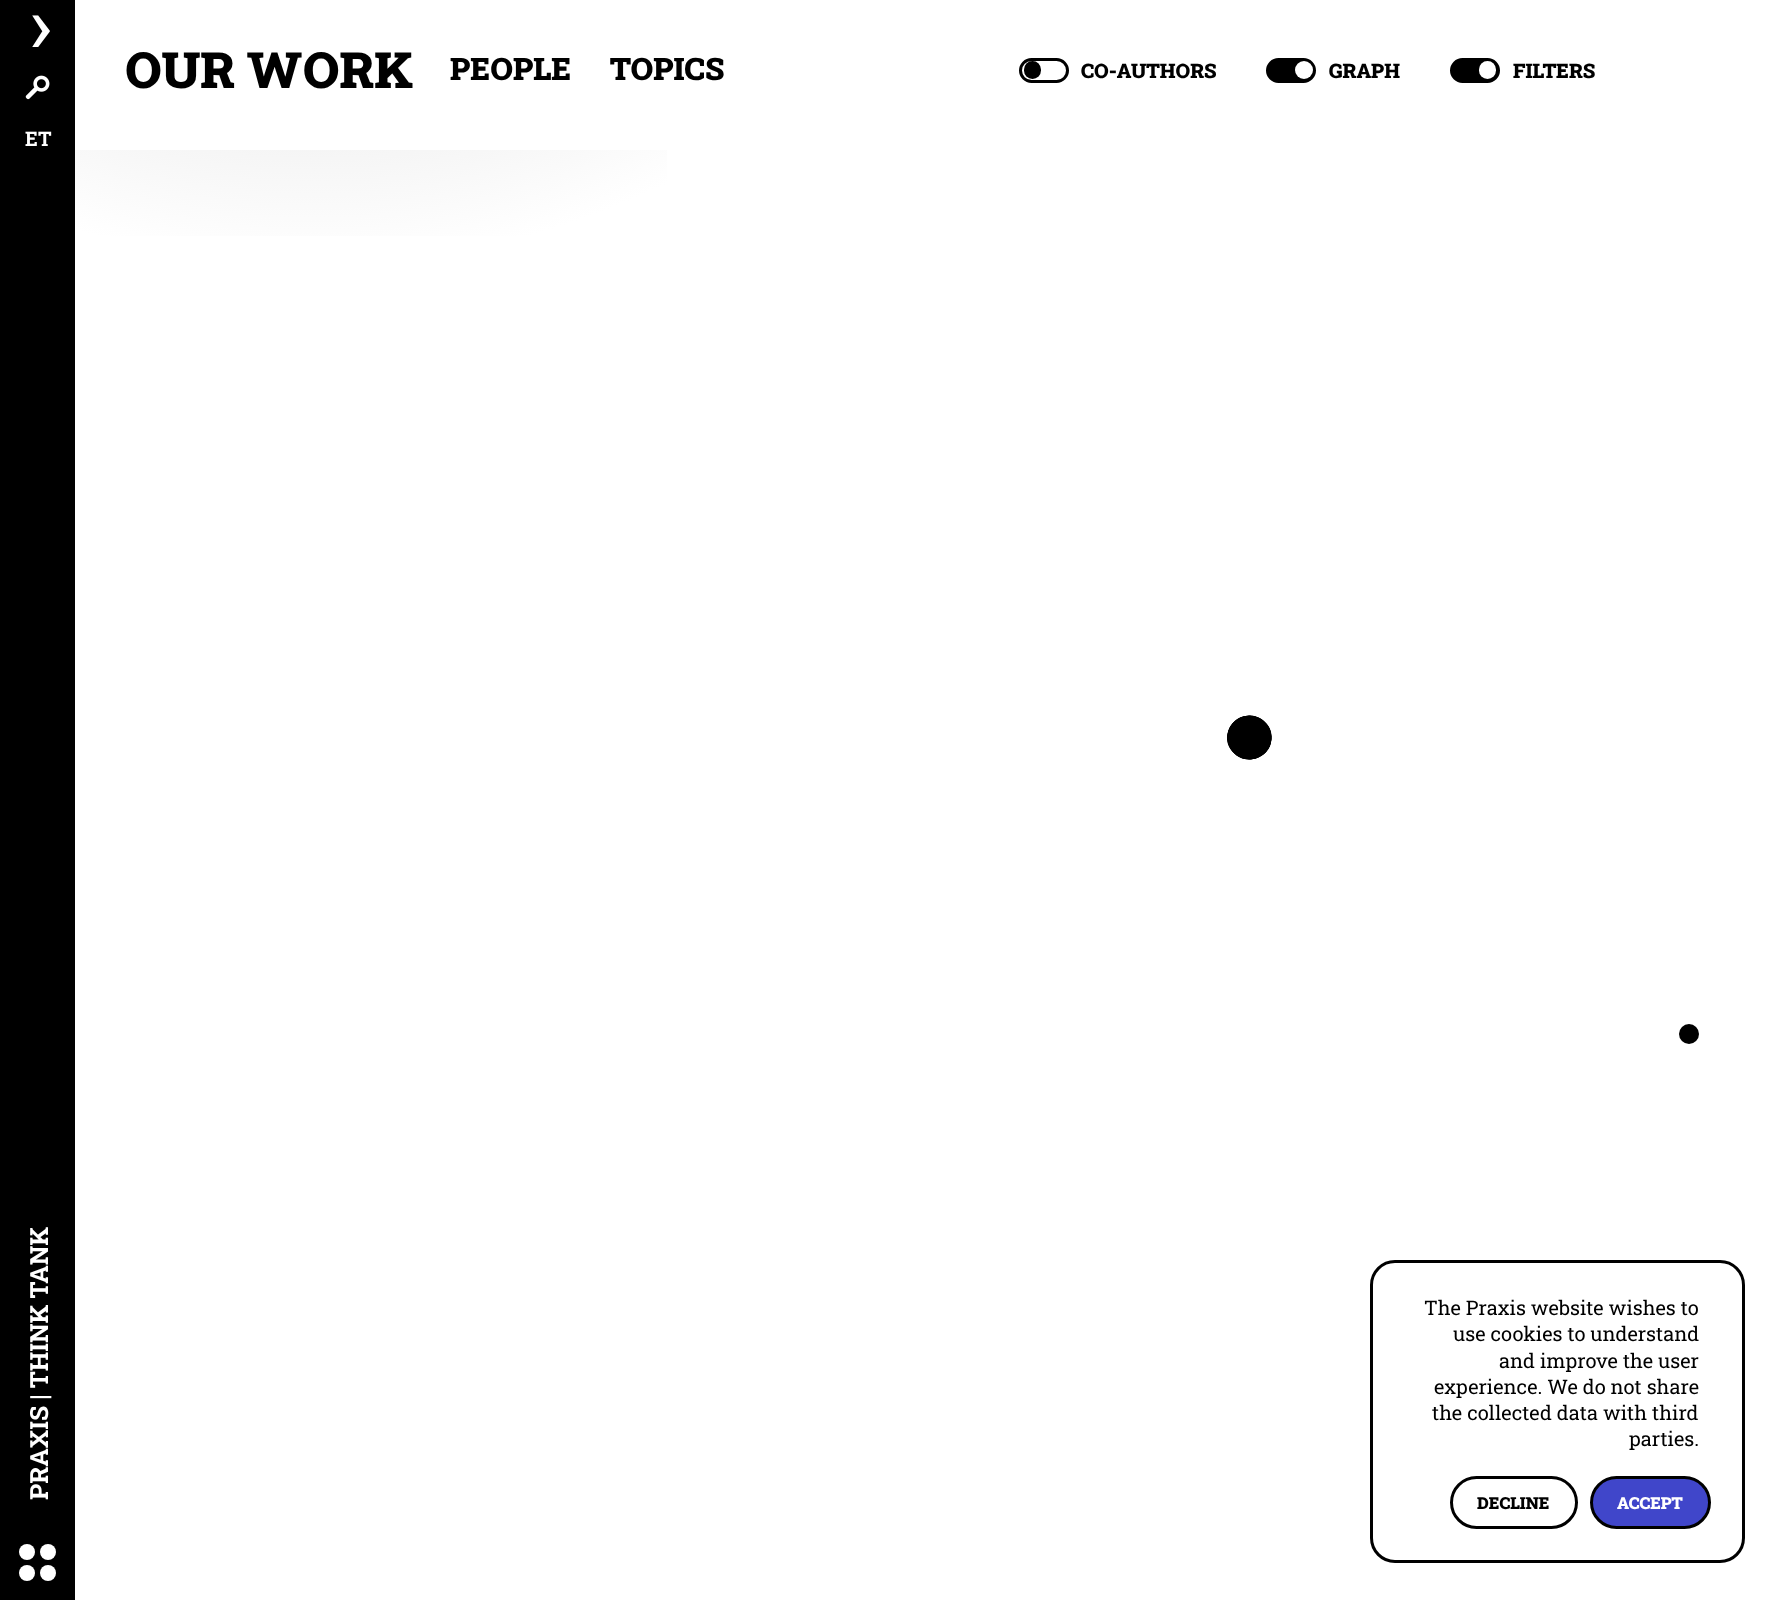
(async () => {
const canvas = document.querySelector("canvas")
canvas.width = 1782
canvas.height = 1600
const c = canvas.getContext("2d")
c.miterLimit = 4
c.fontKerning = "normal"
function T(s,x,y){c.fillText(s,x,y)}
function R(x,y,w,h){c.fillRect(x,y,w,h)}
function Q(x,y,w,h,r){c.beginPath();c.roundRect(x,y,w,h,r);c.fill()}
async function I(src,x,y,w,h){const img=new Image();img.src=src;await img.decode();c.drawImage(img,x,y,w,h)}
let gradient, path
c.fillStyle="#fff"
R(0,0,1782,1600)
c.fillStyle="#000"
R(0,0,75,1600)
c.font="81px Roboto Slab"
c.fillStyle="#fff"
T("›",29,53)
c.font="bold 25px Roboto Slab"
c.save()
c.translate(48,1500)
c.rotate(-90 * Math.PI / 180)
c.fillText("PRAXIS | THINK TANK",0,0)
c.restore()
c.beginPath()
c.arc(27,1552,8,0,7)
c.fill()
c.beginPath()
c.arc(27,1573,8,0,7)
c.fill()
c.beginPath()
c.arc(48,1552,8,0,7)
c.fill()
c.beginPath()
c.arc(48,1573,8,0,7)
c.fill()
c.font="900 50px Roboto Slab"
c.fillStyle="#000"
T("OUR WORK",125,88)
c.font="900 31px Roboto Slab"
T("PEOPLE",450,80)
T("TOPICS",610,80)
gradient = c.createRadialGradient(313,-537,0,313,-537,1338)
gradient.addColorStop(.3,"#d9d9d9")
gradient.addColorStop(.45,"#eee")
gradient.addColorStop(.6,"#fff")
c.fillStyle = gradient
R(75,150,592,86)
c.beginPath()
c.roundRect(1020.5,59.5,47,22,11)
c.strokeStyle="#000"
c.lineWidth=3
c.stroke()
c.fillStyle="#000"
Q(1024,61,17,18,8.5)
c.font="900 20px Roboto Slab"
T("CO-AUTHORS",1081,78)
c.beginPath()
c.roundRect(1267.5,59.5,47,22,11)
c.fill()
c.stroke()
c.fillStyle="#fff"
c.beginPath()
c.arc(1304,70,9,0,7)
c.fill()
c.fillStyle="#000"
T("GRAPH",1329,78)
c.beginPath()
c.roundRect(1451.5,59.5,47,22,11)
c.fill()
c.stroke()
c.fillStyle="#fff"
Q(1479,61,17,18,8.5)
c.fillStyle="#000"
T("FILTERS",1513,78)
path = new Path2D("M1229 744c-9-27 32-41 41-13c9 27-33 41-41 13z")
c.fill(path)
path = new Path2D("M1230 727c15-25 53-4 38 21c-14 25-52 4-38-21z")
c.fill(path)
path = new Path2D("M1237 720c23-17 49 18 25 35c-23 17-49-18-25-35z")
c.fill(path)
path = new Path2D("M1240 718c26-12 45 27 19 39c-26 12-45-27-19-39z")
c.fill(path)
path = new Path2D("M1229 730c10-27 51-12 41 15c-10 27-51 12-41-15z")
c.fill(path)
c.beginPath()
c.arc(1689,1034,10,0,7)
c.fill()
await I("1.png",25,75,25,25)
c.font="bold 20px Roboto Slab"
c.fillStyle="#fff"
T("ET",25,146)
c.beginPath()
c.roundRect(1371.5,1261.5,372,300,23.5)
c.stroke()
c.font="20px Roboto Slab"
c.fillStyle="#000"
T("The Praxis website wishes to",1424,1315)
T("use cookies to understand",1453,1341)
T("and improve the user",1499,1368)
T("experience. We do not share",1434,1394)
T("the collected data with third",1432,1420)
T("parties.",1629,1446)
c.beginPath()
c.roundRect(1451.5,1477.5,125,50,25)
c.stroke()
c.font="900 16.5px Roboto Slab"
T("DECLINE",1477,1509)
c.fillStyle="#4046ca"
c.beginPath()
c.roundRect(1591.5,1477.5,118,50,25)
c.fill()
c.stroke()
c.fillStyle="#fff"
T("ACCEPT",1617,1509)
})()
